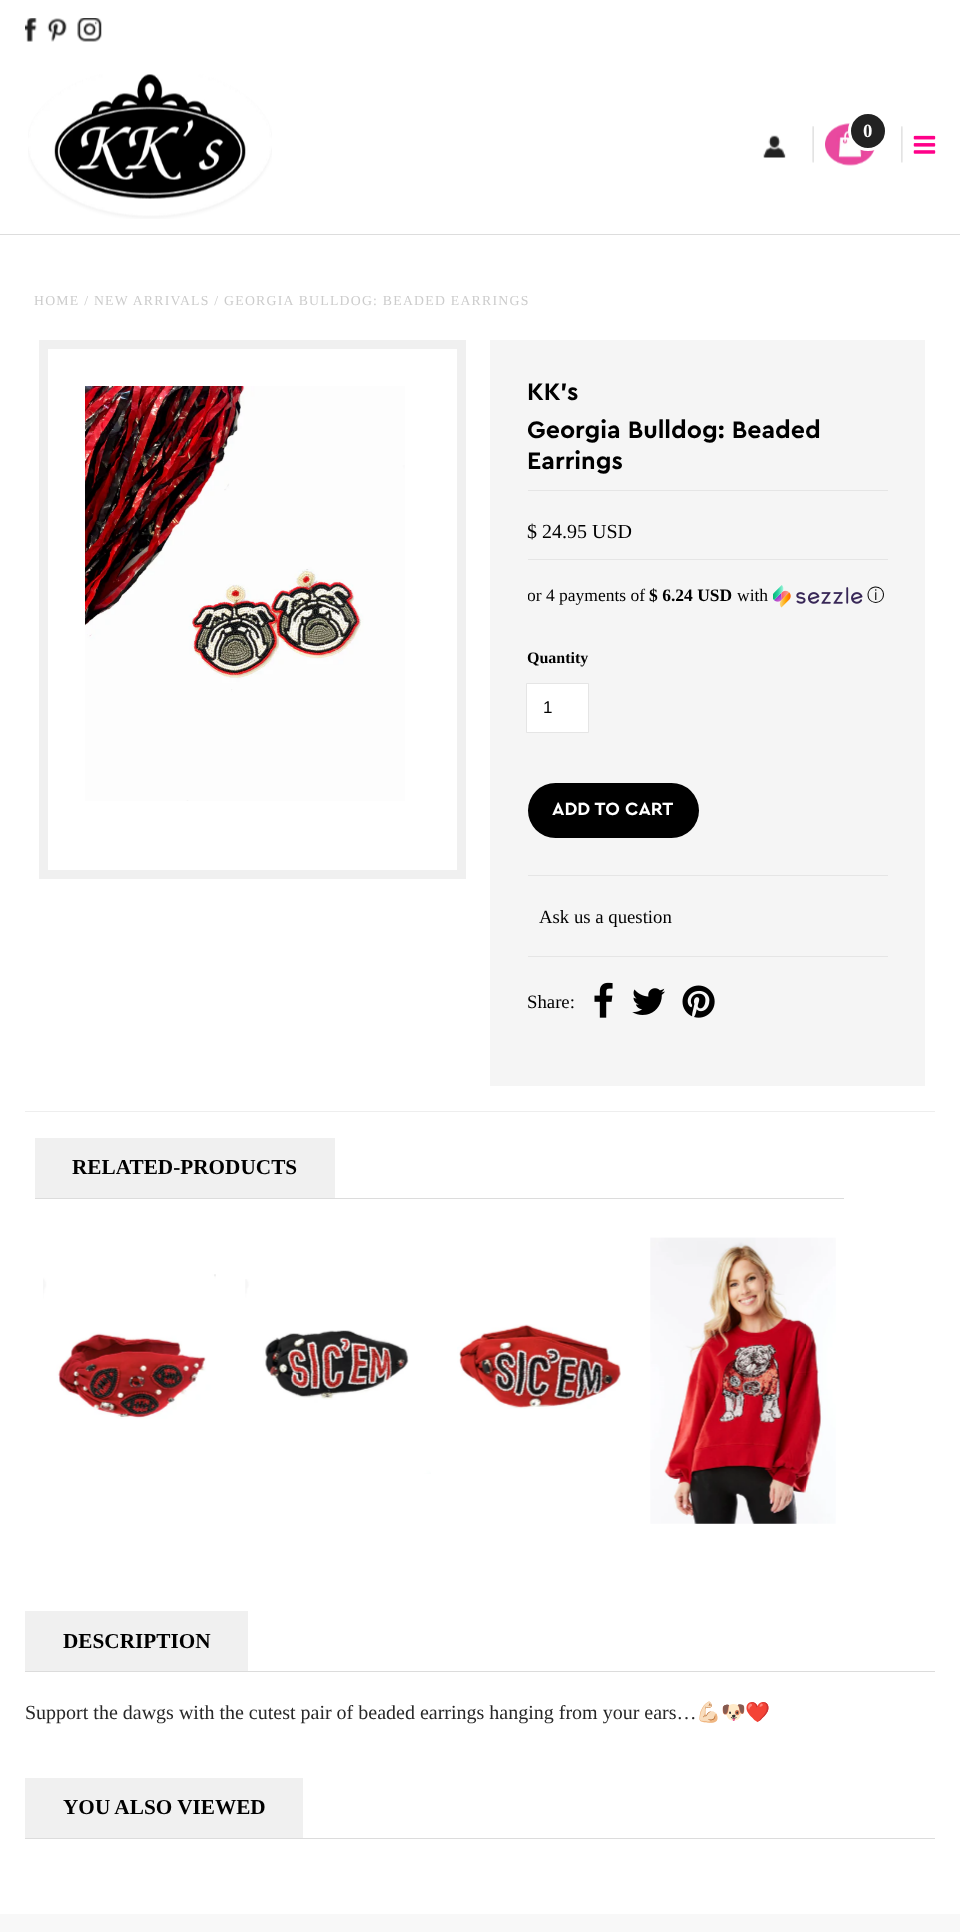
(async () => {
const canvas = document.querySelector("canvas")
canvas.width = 960
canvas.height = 1932
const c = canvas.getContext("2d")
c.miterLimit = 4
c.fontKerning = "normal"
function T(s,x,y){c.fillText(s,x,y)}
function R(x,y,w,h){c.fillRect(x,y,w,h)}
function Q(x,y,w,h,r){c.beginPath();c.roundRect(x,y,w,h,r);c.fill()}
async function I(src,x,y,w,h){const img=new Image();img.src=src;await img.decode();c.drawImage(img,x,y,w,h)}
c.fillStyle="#fff"
R(0,0,960,1932)
c.fillStyle="#ddd"
R(0,234,960,1)
await I("1.png",25,18,12,24)
await I("2.png",47,18,20,24)
await I("3.png",77,18,25,24)
await I("4.png",28,74,244,145)
await I("5.png",763,135,23,23)
await I("6.png",812,126,2,37)
await I("7.png",825,123,50,43)
c.fillStyle="#222"
c.beginPath()
c.arc(868,131,18.5,0,7)
c.fill()
c.strokeStyle="#fff"
c.lineWidth=3
c.stroke()
c.font="bold 18.75px Liberation Serif"
c.fillStyle="#fff"
T("0",863,137)
await I("8.png",901,126,2,37)
await I("9.png",913,135,23,19)
c.letterSpacing="1.25px"
c.font="13.75px Liberation Serif"
c.fillStyle="#ccc"
T("HOME / NEW ARRIVALS / GEORGIA BULLDOG: BEADED EARRINGS",34,305)
c.strokeStyle="#f0f0f0"
c.lineWidth=9
c.strokeRect(43.5,344.5,418,530)
await I("10.png",85,386,320,415)
c.fillStyle="#f5f5f5"
R(490,340,435,746)
c.letterSpacing="0px"
c.font="bold 25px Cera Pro"
c.fillStyle="#000"
T("KK's",527,400)
T("Georgia Bulldog: Beaded",527,438)
T("Earrings",527,469)
c.fillStyle="#e5e5e5"
R(528,490,360,1)
R(528,875,360,1)
R(528,559,360,1)
c.font="20px Liberation Serif"
c.fillStyle="#000"
T("$ 24.95 USD",527,538)
c.save()
c.beginPath()
c.rect(528,585,360,23)
c.clip()
c.font="17.5px Liberation Serif"
T("or 4 payments of",527,601)
c.restore()
c.font="bold 17.5px Liberation Serif"
T("$ 6.24 USD",649,601)
c.font="17.5px Liberation Serif"
T("with",737,601)
await I("11.png",773,585,90,23)
c.font="500 17.5px WenQuanYi Zen Hei"
T("ⓘ",867,601)
c.font="bold 16px Liberation Serif"
T("Quantity",527,663)
c.fillStyle="#fff"
c.beginPath()
c.rect(526.5,683.5,62,49)
c.fill()
c.strokeStyle="#e5e5e5"
c.lineWidth=1
c.stroke()
c.font="17px Liberation Sans"
c.fillStyle="#000"
T("1",543,713)
Q(528,783,171,55,27.5)
c.font="bold 18.75px Cera Pro"
c.fillStyle="#fff"
T("ADD TO CART",552,815)
c.font="18.75px Liberation Serif"
c.fillStyle="#000"
T("Ask us a question",539,923)
c.fillStyle="#e5e5e5"
R(528,956,360,1)
c.fillStyle="#000"
T("Share:",527,1008)
await I("12.png",594,982,19,36)
await I("13.png",632,988,33,27)
await I("14.png",682,985,33,33)
c.fillStyle="#eee"
R(25,1111,910,1)
c.fillStyle="#dcdcdc"
R(35,1198,809,1)
c.fillStyle="#f0f0f0"
R(35,1138,300,60)
c.font="bold 21.25px Liberation Serif"
c.fillStyle="#000"
T("RELATED-PRODUCTS",72,1174)
await I("15.png",43,1274,173,145)
await I("16.png",245,1279,186,195)
await I("17.png",457,1324,164,85)
await I("18.png",650,1237,186,287)
c.fillStyle="#dcdcdc"
R(25,1671,910,1)
c.fillStyle="#f0f0f0"
R(25,1611,223,60)
c.fillStyle="#000"
T("DESCRIPTION",63,1648)
c.font="20px Liberation Serif"
c.fillStyle="#282828"
T("Support the dawgs with the cutest pair of beaded earrings hanging from your ears…",25,1719)
c.font="20px Noto Color Emoji"
T("💪🏻🐶❤️",696,1719)
c.fillStyle="#dcdcdc"
R(25,1838,910,1)
c.fillStyle="#f0f0f0"
R(25,1778,278,60)
c.font="bold 21.25px Liberation Serif"
c.fillStyle="#000"
T("YOU ALSO VIEWED",63,1814)
c.fillStyle="#f8f8f8"
R(0,1914,960,18)
})()
